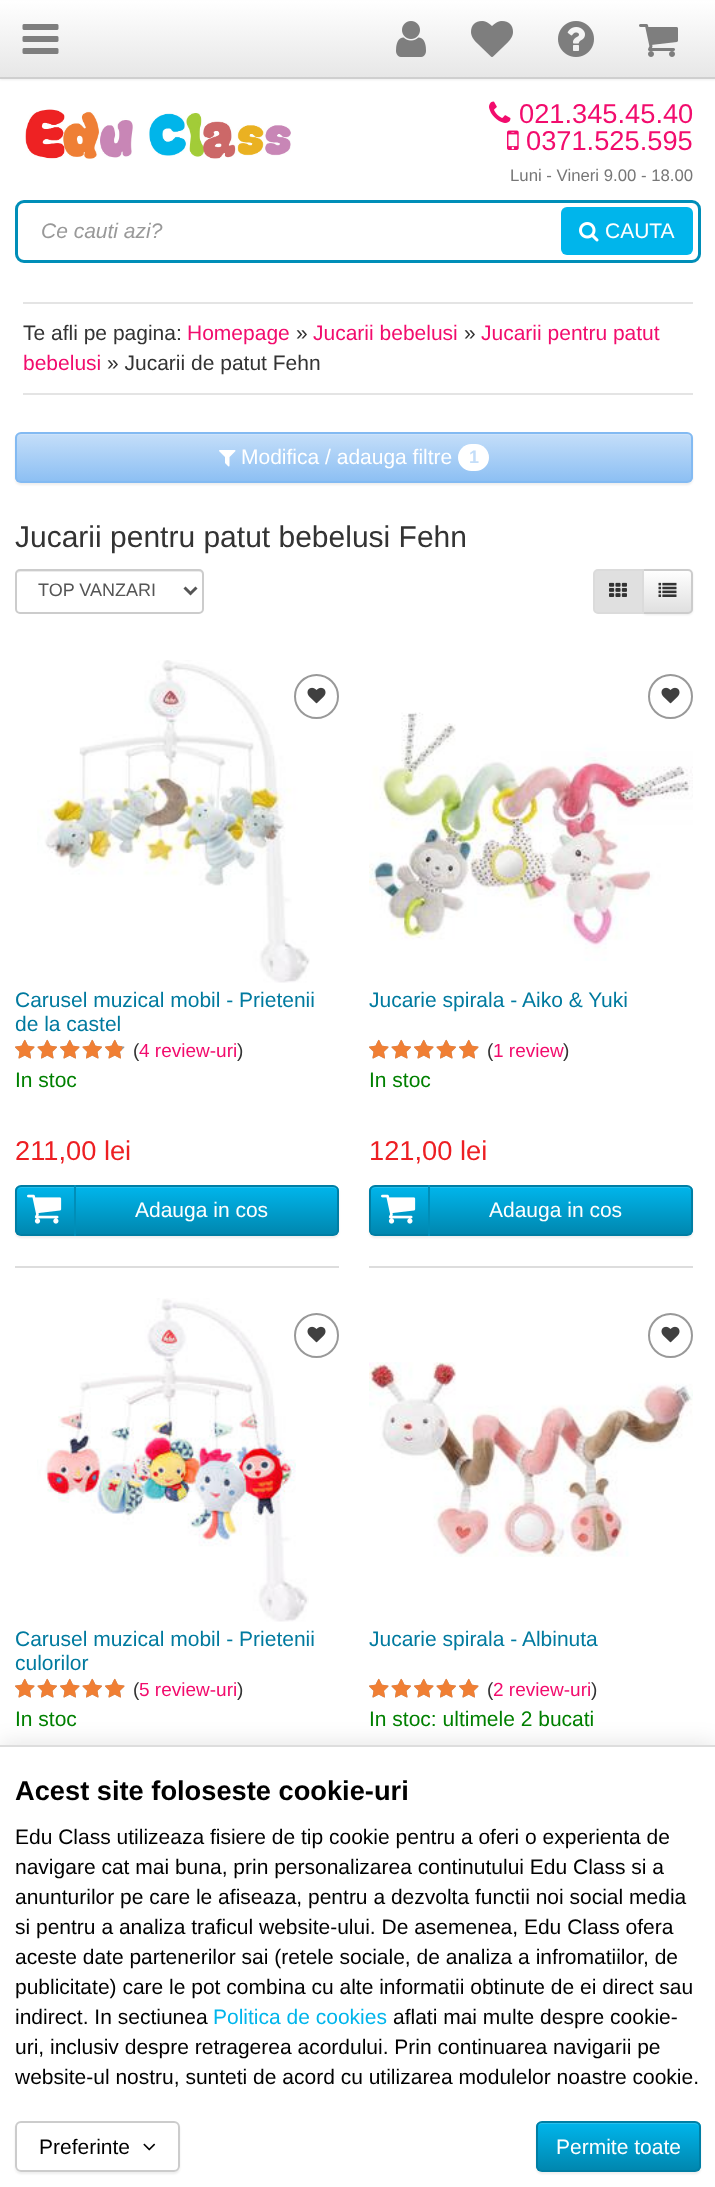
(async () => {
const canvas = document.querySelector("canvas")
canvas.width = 715
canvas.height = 2187
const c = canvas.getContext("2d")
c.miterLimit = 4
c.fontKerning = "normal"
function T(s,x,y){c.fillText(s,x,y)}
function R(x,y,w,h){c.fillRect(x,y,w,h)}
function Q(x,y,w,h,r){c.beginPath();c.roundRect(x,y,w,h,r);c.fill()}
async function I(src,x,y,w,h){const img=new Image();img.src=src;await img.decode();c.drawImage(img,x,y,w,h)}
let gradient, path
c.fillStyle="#fff"
R(0,0,715,2187)
c.fillStyle="#0d0d0d12"
c.filter="blur(1px)"
c.beginPath()
c.rect(0,2,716,78)
c.fill()
c.filter="none"
gradient = c.createLinearGradient(358,0,358,77)
gradient.addColorStop(0,"#fff")
gradient.addColorStop(1,"#e7e7e7")
c.fillStyle = gradient
R(0,1,715,76)
c.fillStyle="#cfcfcf"
R(0,77,715,2)
await I("1.png",22,24,37,30)
await I("2.png",396,21,30,36)
await I("3.png",471,21,42,36)
await I("4.png",558,21,36,36)
await I("5.png",639,24,39,33)
await I("6.png",25,109,266,50)
await I("7.png",489,101,22,22)
c.font="27.25px Liberation Sans"
c.fillStyle="#f20c6d"
T("021.345.45.40",519,123)
await I("8.png",507,130,12,20)
T("0371.525.595",526,150)
c.font="16.75px Liberation Sans"
c.fillStyle="#777"
T("Luni - Vineri 9.00 - 18.00",510,181)
c.beginPath()
c.roundRect(16.5,201.5,683,60,7.5)
c.strokeStyle="#008eb8"
c.lineWidth=3
c.stroke()
c.font="italic 21px Liberation Sans"
c.fillStyle="#999"
T("Ce cauti azi?",41,238)
c.fillStyle="#00b5eb"
Q(561,207,132,48,6)
await I("9.png",579,222,20,20)
c.font="21px Liberation Sans"
c.fillStyle="#fff"
T("CAUTA",605,238)
c.fillStyle="#e4e4e4"
R(23,302,670,2)
R(23,393,670,2)
c.fillStyle="#333"
T("Te afli pe pagina:",23,340)
c.fillStyle="#f20c6d"
T("Homepage",187,340)
c.fillStyle="#333"
T("»",296,340)
c.fillStyle="#f20c6d"
T("Jucarii bebelusi",313,340)
c.fillStyle="#333"
T("»",464,340)
c.fillStyle="#f20c6d"
T("Jucarii pentru patut",481,340)
T("bebelusi",23,370)
c.fillStyle="#333"
T("» Jucarii de patut Fehn",107,370)
c.fillStyle="#00000012"
c.filter="blur(1px)"
c.beginPath()
c.roundRect(15,434,678,51,6)
c.fill()
c.filter="none"
c.save()
c.beginPath()
c.roundRect(15,432,678,51,6)
c.clip()
gradient = c.createLinearGradient(354,434,354,482)
gradient.addColorStop(0,"#c4def9")
gradient.addColorStop(1,"#8cbff3")
c.fillStyle = gradient
R(15,434,678,48)
c.restore()
c.fillStyle="#ffffff26"
path = new Path2D("M21 435h666c2 0 5 2 5 5v-1c0-3-2-5-5-5h-665c-2 0-3 1-4 2z")
c.fill(path)
c.beginPath()
c.roundRect(16,433,676,49,5)
c.strokeStyle="#83baf2"
c.lineWidth=2
c.stroke()
await I("10.png",219,450,17,17)
c.fillStyle="#fff"
T("Modifica / adauga filtre",241,464)
Q(458,444,31,27,13.5)
c.font="bold 18px Liberation Sans"
c.fillStyle="#c4def9"
T("1",469,463)
c.font="30px Liberation Sans"
c.fillStyle="#333"
T("Jucarii pentru patut bebelusi Fehn",15,547)
c.fillStyle="#ececec"
path = new Path2D("M20 572h180c1 0 2 1 2 2v37c1 0 1-1 1-2v-36c0-2-1-3-3-3h-180c-2 0-3 1-3 3z")
c.fill(path)
c.beginPath()
c.roundRect(16,570,187,43,4)
c.strokeStyle="#ccc"
c.stroke()
path = new Path2D("M184.5 587.5l6 6l6-6")
c.strokeStyle="#555"
c.lineWidth=3
c.stroke(path)
c.font="18px Liberation Sans"
c.fillStyle="#555"
T("TOP VANZARI",38,596)
c.fillStyle="#00000012"
c.filter="blur(1px)"
c.beginPath()
c.roundRect(642,570,51,45,5)
c.fill()
c.filter="none"
c.save()
c.beginPath()
c.roundRect(642,569,51,45,[0,5,5,0])
c.clip()
gradient = c.createLinearGradient(668,570,668,612)
gradient.addColorStop(0,"#fff")
gradient.addColorStop(1,"#e0e0e0")
c.fillStyle = gradient
R(644,570,49,42)
c.restore()
c.beginPath()
c.roundRect(643,570,49,43,[0,4,4,0])
c.strokeStyle="#ccc"
c.lineWidth=2
c.stroke()
c.fillStyle="#e0e0e0"
c.beginPath()
c.roundRect(594,570,49,43,[4,0,0,4])
c.fill()
c.strokeStyle="#dbdbdb"
c.stroke()
await I("11.png",609,582,18,15)
await I("12.png",658,582,19,15)
c.fillStyle="#ddd"
R(15,1266,324,2)
await I("13.png",37,660,273,323)
c.beginPath()
c.arc(316.5,696.5,21.5,0,7)
c.strokeStyle="#999"
c.stroke()
await I("14.png",307,687,19,17)
c.font="21px Liberation Sans"
c.fillStyle="#007a9f"
T("Carusel muzical mobil - Prietenii",15,1007)
T("de la castel",15,1031)
await I("15.png",15,1039,110,20)
await I("16.png",15,1039,107,20)
c.font="19px Liberation Sans"
c.fillStyle="#333"
T("(",133,1057)
c.fillStyle="#f20c6d"
T("4 review-uri",139,1057)
c.fillStyle="#333"
T(")",237,1057)
c.font="21px Liberation Sans"
c.fillStyle="#008000"
T("In stoc",15,1087)
c.font="27.25px Liberation Sans"
c.fillStyle="#ed1f23"
T("211,00 lei",15,1160)
c.fillStyle="#00000012"
c.filter="blur(1px)"
c.beginPath()
c.roundRect(15,1187,324,51,6)
c.fill()
c.filter="none"
c.save()
c.beginPath()
c.roundRect(15,1185,324,51,6)
c.clip()
gradient = c.createLinearGradient(177,1187,177,1235)
gradient.addColorStop(0,"#00b5eb")
gradient.addColorStop(1,"#0086ae")
c.fillStyle = gradient
R(15,1187,324,48)
c.restore()
c.fillStyle="#26c0ed"
path = new Path2D("M21 1188h312c2 0 5 2 5 4c0-3-2-5-5-5h-311c-2 0-3 1-4 2z")
c.fill(path)
c.beginPath()
c.roundRect(16,1186,322,49,5)
c.strokeStyle="#007ea4"
c.stroke()
await I("17.png",27,1194,35,30)
c.fillStyle="#008eb8"
R(74,1185,2,51)
c.font="21px Liberation Sans"
c.fillStyle="#fff"
T("Adauga in cos",135,1217)
c.fillStyle="#ddd"
R(369,1266,324,2)
await I("18.png",369,712,324,249)
c.beginPath()
c.arc(670.5,696.5,21.5,0,7)
c.strokeStyle="#999"
c.stroke()
await I("14.png",661,687,19,17)
c.fillStyle="#007a9f"
T("Jucarie spirala -",369,1007)
T("Aiko & Yuki",522,1007)
await I("15.png",369,1039,110,20)
await I("19.png",369,1039,110,20)
c.font="19px Liberation Sans"
c.fillStyle="#333"
T("(",487,1057)
c.fillStyle="#f20c6d"
T("1 review",493,1057)
c.fillStyle="#333"
T(")",563,1057)
c.font="21px Liberation Sans"
c.fillStyle="#008000"
T("In stoc",369,1087)
c.font="27.25px Liberation Sans"
c.fillStyle="#ed1f23"
T("121,00 lei",369,1160)
c.fillStyle="#00000012"
c.filter="blur(1px)"
c.beginPath()
c.roundRect(369,1187,324,51,6)
c.fill()
c.filter="none"
c.save()
c.beginPath()
c.roundRect(369,1185,324,51,6)
c.clip()
gradient = c.createLinearGradient(531,1187,531,1235)
gradient.addColorStop(0,"#00b5eb")
gradient.addColorStop(1,"#0086ae")
c.fillStyle = gradient
R(369,1187,324,48)
c.restore()
c.fillStyle="#26c0ed"
path = new Path2D("M375 1188h312c2 0 5 2 5 4c0-3-2-5-5-5h-311c-2 0-3 1-4 2z")
c.fill(path)
c.beginPath()
c.roundRect(370,1186,322,49,5)
c.strokeStyle="#007ea4"
c.stroke()
await I("17.png",381,1194,35,30)
c.fillStyle="#008eb8"
R(428,1185,2,51)
c.font="21px Liberation Sans"
c.fillStyle="#fff"
T("Adauga in cos",489,1217)
await I("20.png",37,1298,272,324)
c.beginPath()
c.arc(316.5,1335.5,21.5,0,7)
c.strokeStyle="#999"
c.stroke()
await I("14.png",307,1326,19,17)
c.fillStyle="#007a9f"
T("Carusel muzical mobil - Prietenii",15,1646)
T("culorilor",15,1670)
await I("15.png",15,1678,110,20)
await I("19.png",15,1678,110,20)
c.font="19px Liberation Sans"
c.fillStyle="#333"
T("(",133,1696)
c.fillStyle="#f20c6d"
T("5 review-uri",139,1696)
c.fillStyle="#333"
T(")",237,1696)
c.font="21px Liberation Sans"
c.fillStyle="#008000"
T("In stoc",15,1726)
c.beginPath()
c.arc(670.5,1335.5,21.5,0,7)
c.stroke()
await I("14.png",661,1326,19,17)
await I("21.png",369,1362,324,195)
c.fillStyle="#007a9f"
T("Jucarie spirala - Albinuta",369,1646)
await I("15.png",369,1678,110,20)
await I("19.png",369,1678,110,20)
c.font="19px Liberation Sans"
c.fillStyle="#333"
T("(",487,1696)
c.fillStyle="#f20c6d"
T("2 review-uri",493,1696)
c.fillStyle="#333"
T(")",591,1696)
c.font="21px Liberation Sans"
c.fillStyle="#008000"
T("In stoc: ultimele 2 bucati",369,1726)
c.fillStyle="#0000001a"
c.filter="blur(11px)"
c.beginPath()
c.rect(0,1743,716,443)
c.fill()
c.filter="none"
c.fillStyle="#fff"
R(0,1747,715,440)
c.fillStyle="#ddd"
R(0,1745,715,2)
c.font="bold 27.25px Liberation Sans"
c.fillStyle="#000"
T("Acest site foloseste cookie-uri",15,1800)
c.font="21px Liberation Sans"
T("Edu Class utilizeaza fisiere de tip cookie pentru a oferi o experienta de",15,1844)
T("navigare cat mai buna, prin personalizarea continutului Edu Class si a",15,1874)
T("anunturilor pe care le afiseaza, pentru a dezvolta functii noi social media",15,1904)
T("si pentru a analiza traficul website-ului. De asemenea, Edu Class ofera",15,1934)
T("aceste date partenerilor sai (retele sociale, de analiza a infromatiilor, de",15,1964)
T("publicitate) care le pot combina cu alte informatii obtinute de ei direct sau",15,1994)
T("indirect. In sectiunea",15,2024)
c.fillStyle="#00b5eb"
T("Politica de cookies",213,2024)
c.fillStyle="#000"
T("aflati mai multe despre cookie-",393,2024)
T("uri, inclusiv despre retragerea acordului. Prin continuarea navigarii pe",15,2054)
T("website-ul nostru, sunteti de acord cu utilizarea modulelor noastre cookie.",15,2084)
c.save()
path = new Path2D("M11 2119h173v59h-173zm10 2h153c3.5 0 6 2.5 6 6v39c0 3.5-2.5 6-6 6h-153c-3.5 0-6-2.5-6-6v-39c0-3.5 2.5-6 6-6z")
c.clip(path,"evenodd")
c.fillStyle="#00000012"
c.filter="blur(1px)"
c.beginPath()
c.roundRect(15,2123,165,51,6)
c.fill()
c.filter="none"
c.restore()
c.beginPath()
c.roundRect(16,2122,163,49,5)
c.strokeStyle="#ccc"
c.stroke()
T("Preferinte",39,2154)
await I("22.png",143,2143,13,8)
c.fillStyle="#00000012"
c.filter="blur(1px)"
c.beginPath()
c.roundRect(536,2123,165,51,6)
c.fill()
c.filter="none"
c.save()
c.beginPath()
c.roundRect(536,2121,165,51,6)
c.clip()
gradient = c.createLinearGradient(618,2123,618,2171)
gradient.addColorStop(0,"#00b5eb")
gradient.addColorStop(1,"#0086ae")
c.fillStyle = gradient
R(536,2123,165,48)
c.restore()
c.fillStyle="#26c0ed"
path = new Path2D("M542 2124h152c3 0 5 2 5 4c0-3-2-5-5-5h-152c-3 0-5 2-5 5c0-2 2-4 5-4z")
c.fill(path)
c.beginPath()
c.roundRect(537,2122,163,49,5)
c.strokeStyle="#007ea4"
c.stroke()
c.fillStyle="#fff"
T("Permite toate",556,2154)
})()
